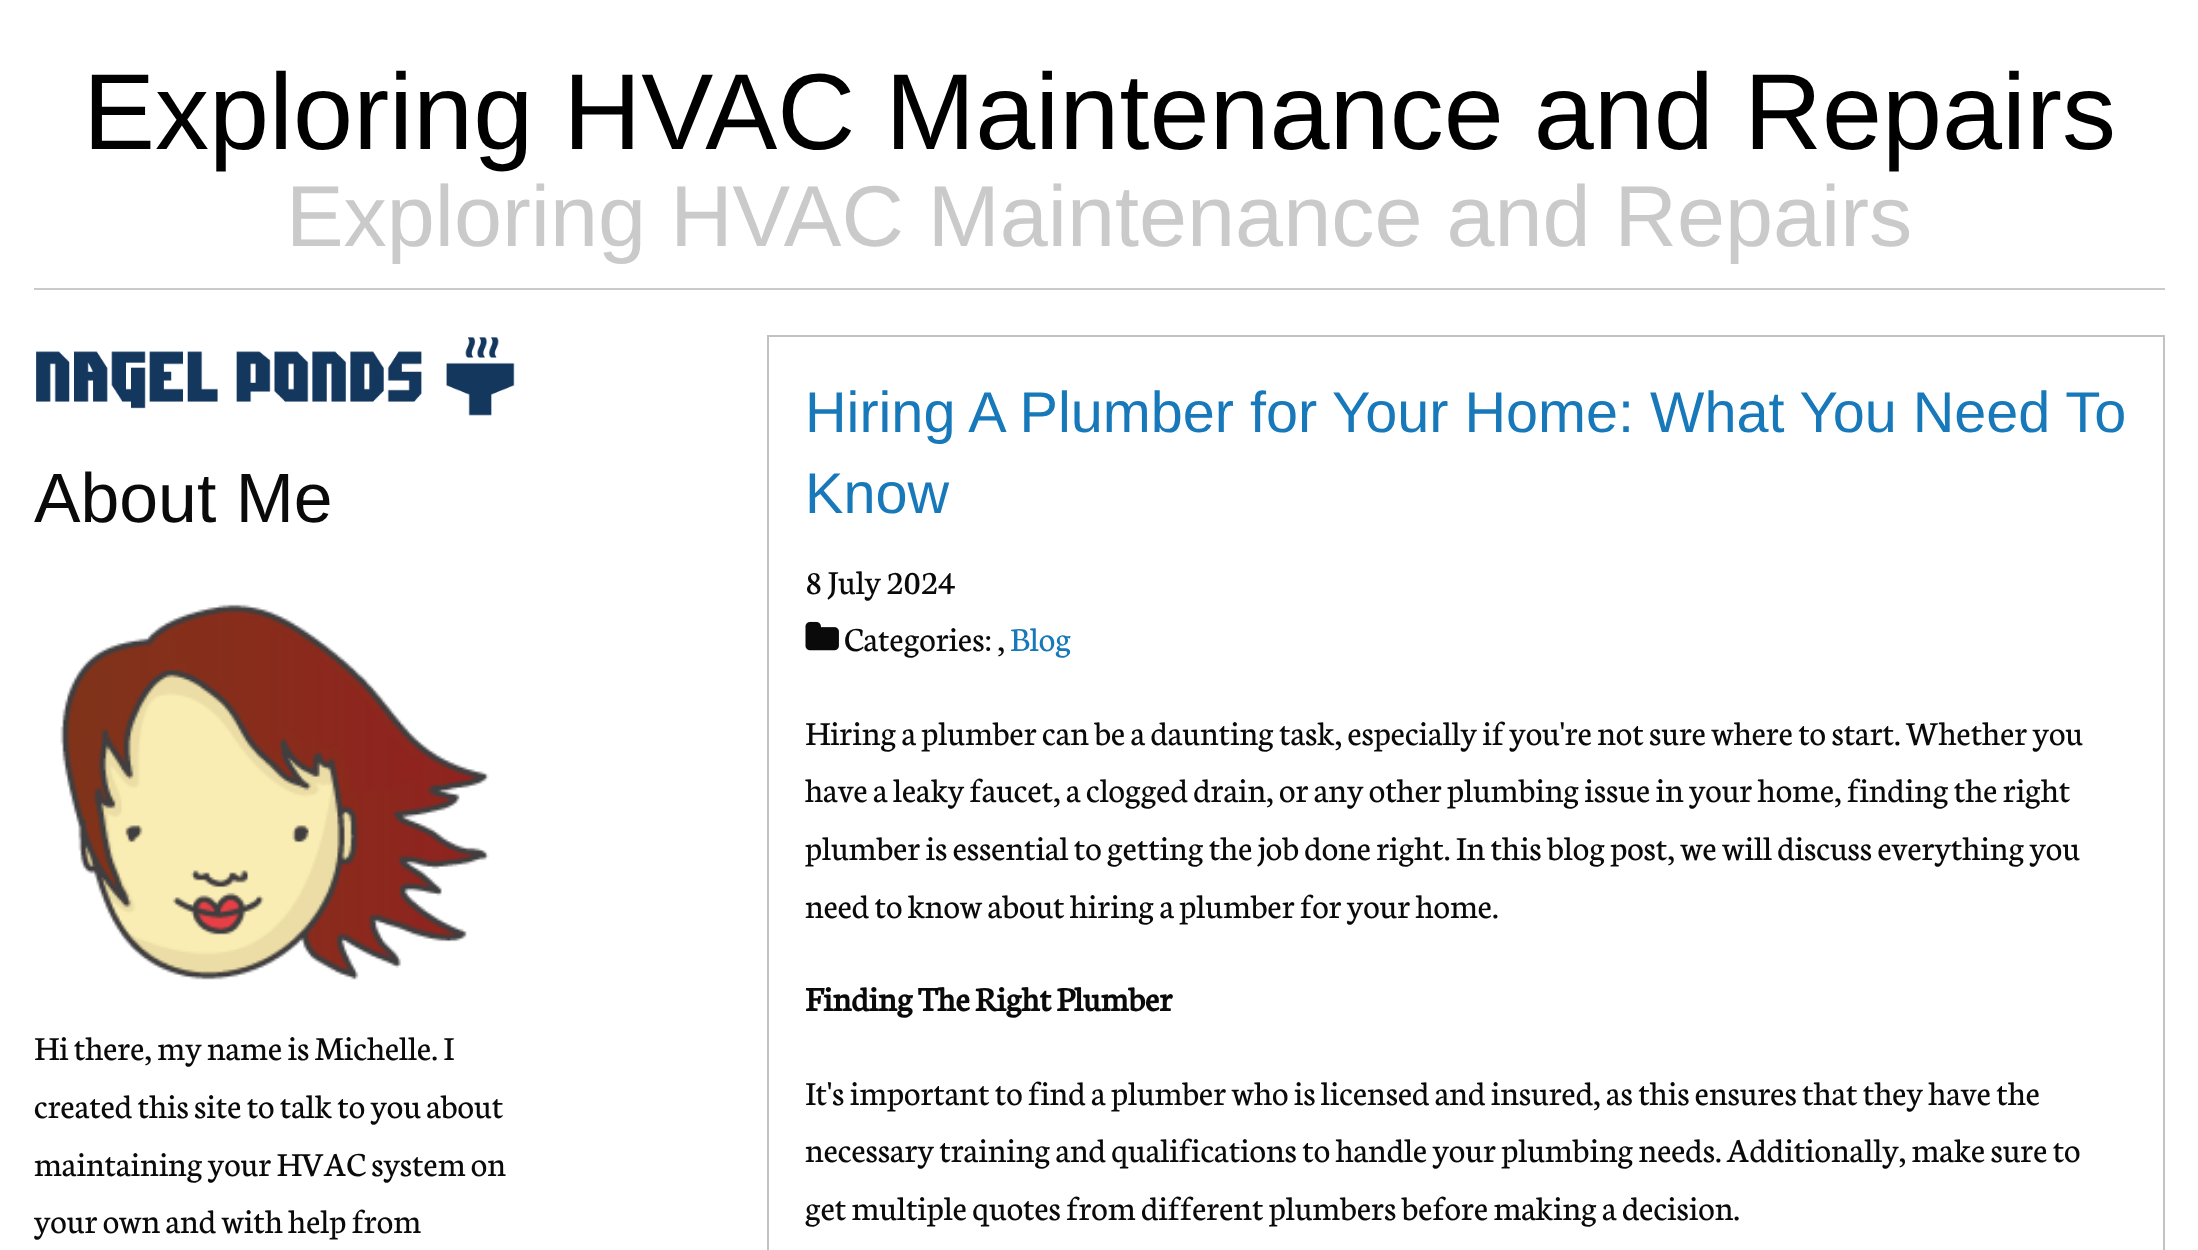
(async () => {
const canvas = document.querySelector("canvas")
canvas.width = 2198
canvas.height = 1250
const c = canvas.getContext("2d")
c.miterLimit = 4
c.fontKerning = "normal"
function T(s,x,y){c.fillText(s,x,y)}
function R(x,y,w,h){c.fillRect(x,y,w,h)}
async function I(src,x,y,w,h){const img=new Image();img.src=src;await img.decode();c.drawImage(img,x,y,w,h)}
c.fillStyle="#fff"
R(0,0,2198,1250)
c.font="108px Liberation Sans"
c.fillStyle="#000"
T("Exploring HVAC Maintenance and Repairs",83,149)
c.font="86.4px Liberation Sans"
c.fillStyle="#cacaca"
T("Exploring HVAC Maintenance and Repairs",286,246)
R(34,288,2131,2)
await I("1.png",36,337,479,79)
c.font="69.75px Liberation Sans"
c.fillStyle="#0a0a0a"
T("About Me",34,522)
await I("2.png",60,604,429,376)
c.font="36px Neuton"
T("Hi there, my name is Michelle. I",34,1060)
T("created this site to talk to you about",34,1118)
T("maintaining your HVAC system on",34,1176)
T("your own and with help from",34,1233)
c.strokeStyle="#c2c2c2"
c.lineWidth=2
c.strokeRect(768,336,1396,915)
c.font="57.6px Liberation Sans"
c.fillStyle="#1779ba"
T("Hiring A Plumber for Your Home: What You Need To",805,432)
T("Know",805,513)
c.font="36px Neuton"
c.fillStyle="#0a0a0a"
T("8 July 2024",805,594)
await I("3.png",805,621,34,30)
T("Categories: ,",844,651)
c.fillStyle="#1779ba"
T("Blog",1010,651)
c.fillStyle="#0a0a0a"
T("Hiring a plumber can be a daunting task, especially if you're not sure where to start. Whether you",805,745)
T("have a leaky faucet, a clogged drain, or any other plumbing issue in your home, finding the right",805,802)
T("plumber is essential to getting the job done right. In this blog post, we will discuss everything you",805,860)
T("need to know about hiring a plumber for your home.",805,918)
c.font="bold 36px Neuton"
T("Finding The Right Plumber",805,1011)
c.font="36px Neuton"
T("It's important to find a plumber who is licensed and insured, as this ensures that they have the",805,1105)
T("necessary training and qualifications to handle your plumbing needs. Additionally, make sure to",805,1162)
T("get multiple quotes from different plumbers before making a decision.",805,1220)
})()
